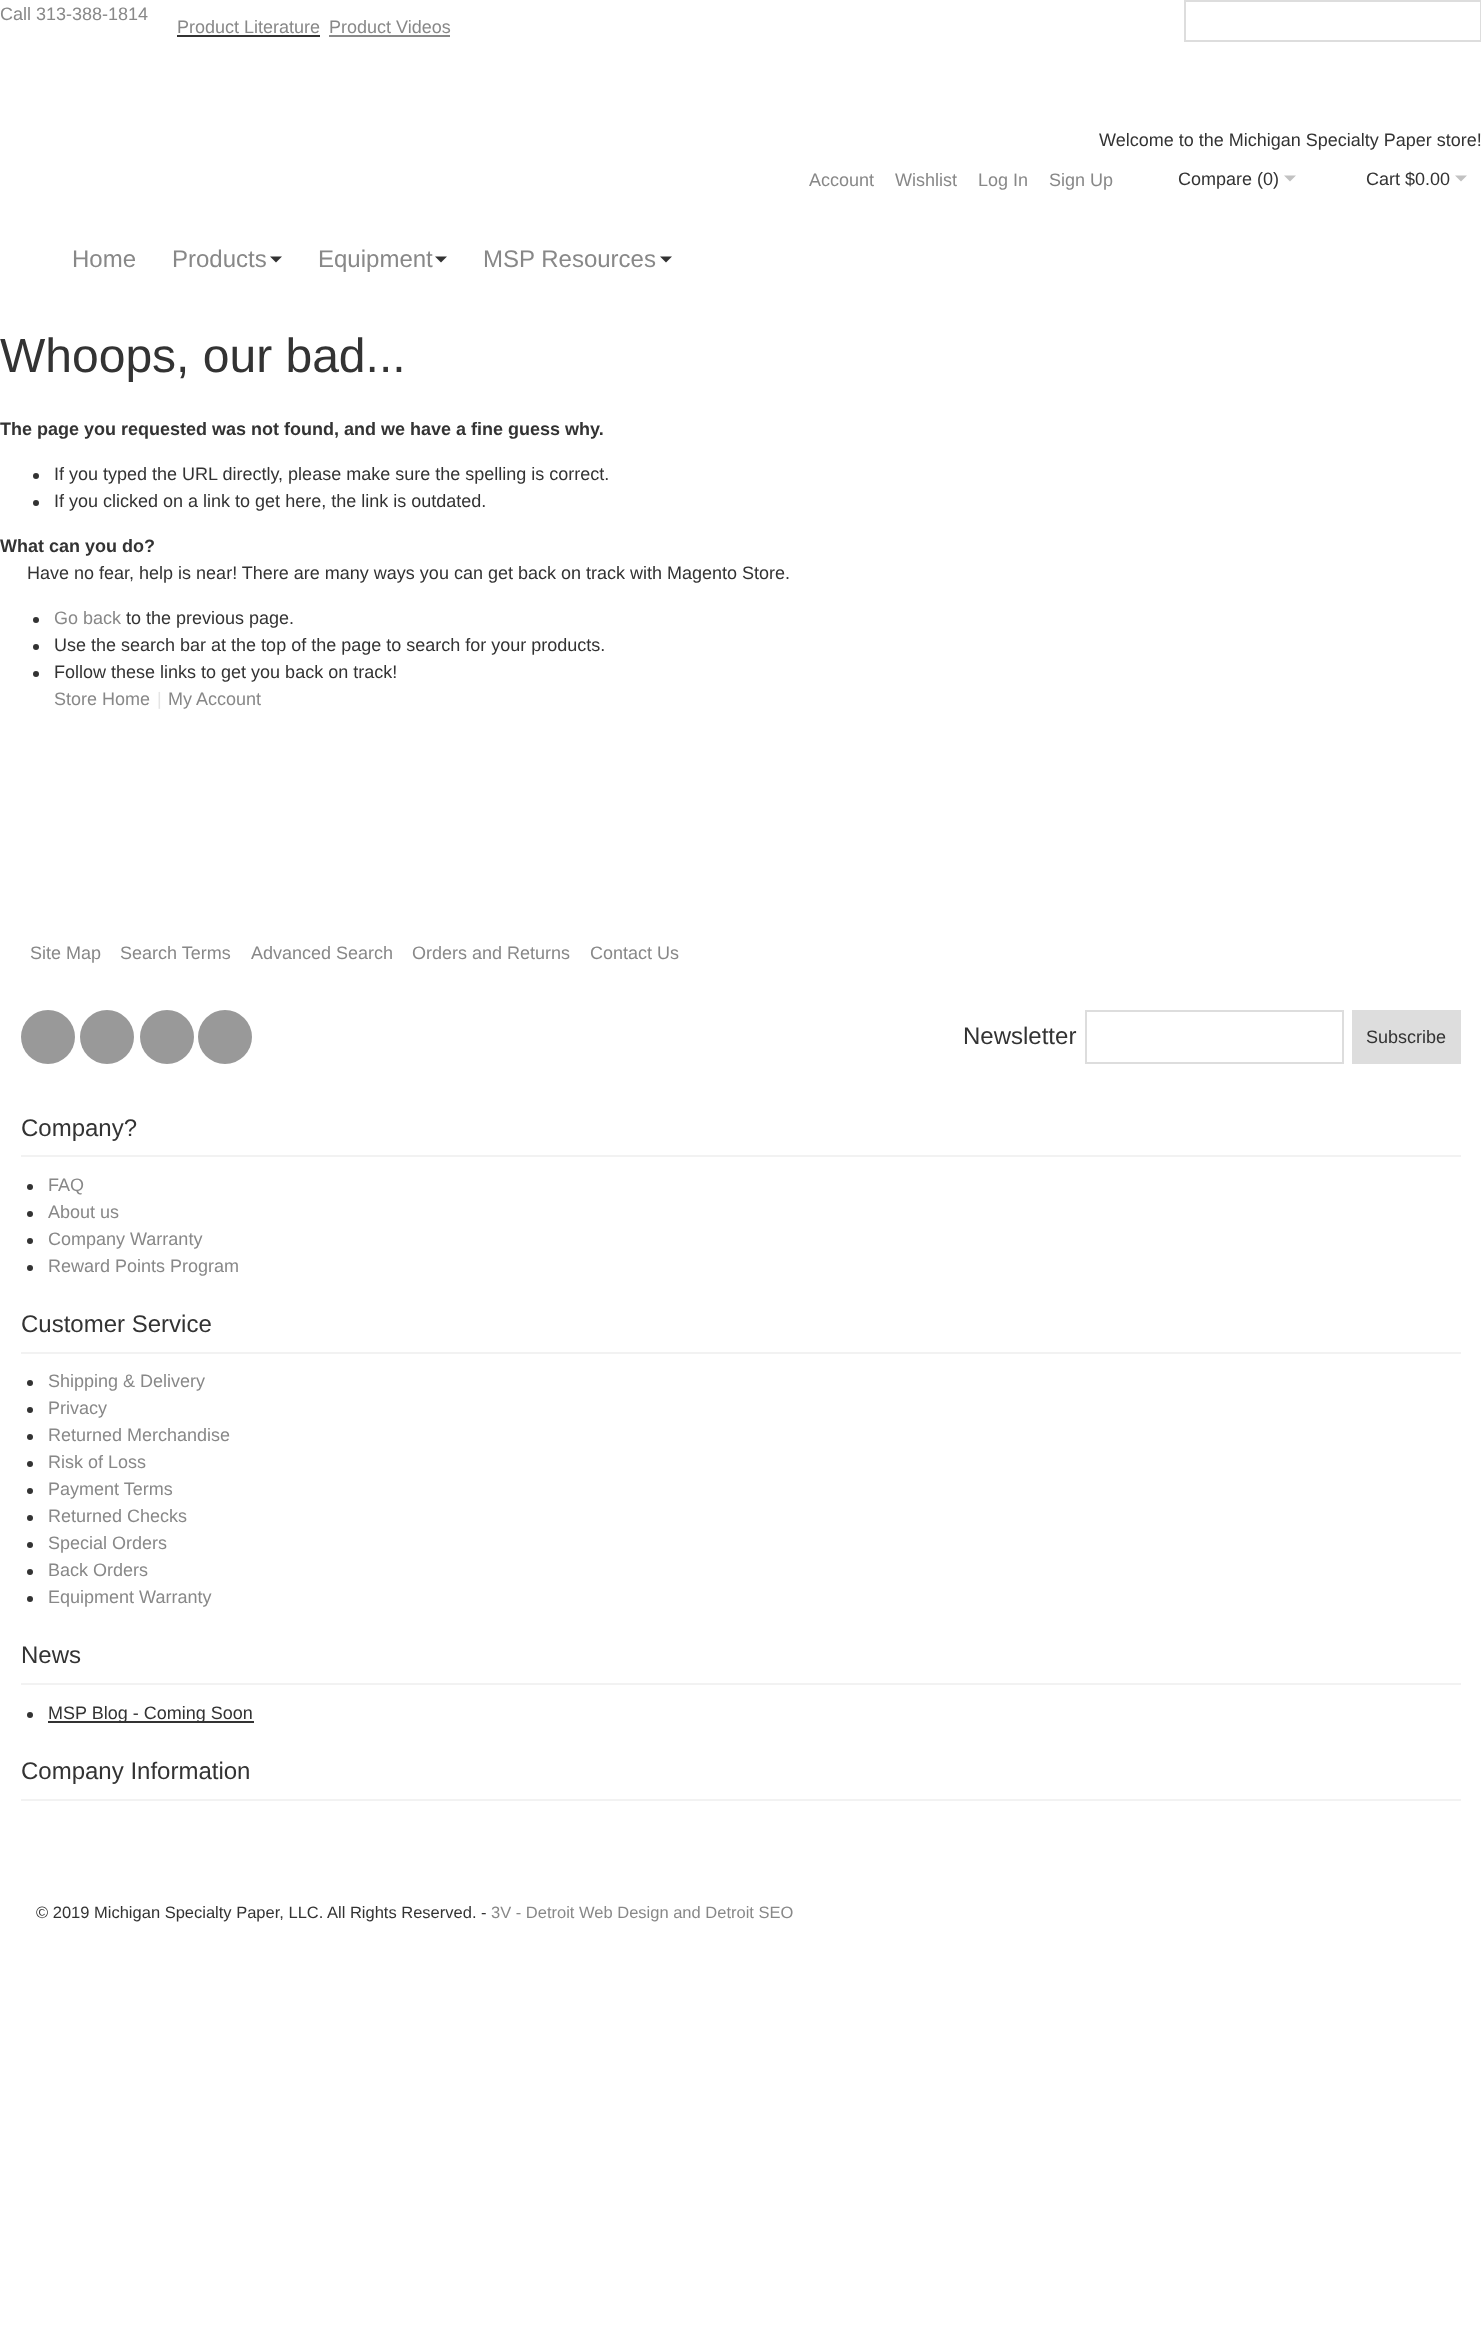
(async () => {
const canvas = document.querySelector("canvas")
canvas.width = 1481
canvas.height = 2351
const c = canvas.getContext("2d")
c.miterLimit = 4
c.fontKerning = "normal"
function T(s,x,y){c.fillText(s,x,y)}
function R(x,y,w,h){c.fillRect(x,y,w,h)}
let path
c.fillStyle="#fff"
R(0,0,1481,2351)
c.font="18px Liberation Sans"
c.fillStyle="#888"
T("Call 313-388-1814",0,20)
c.strokeStyle="#ddd"
c.lineWidth=2
c.strokeRect(1185,1,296,40)
T("Product Literature",177,33)
c.fillStyle="#333"
R(177,35,143,2)
c.fillStyle="#888"
T("Product Videos",329,33)
R(329,35,121,2)
c.fillStyle="#333"
T("Welcome to the Michigan Specialty Paper store!",1099,146)
c.fillStyle="#888"
T("Account",809,186)
T("Wishlist",895,186)
T("Log In",978,186)
T("Sign Up",1049,186)
c.fillStyle="#333"
T("Compare (0)",1178,185)
c.fillStyle="#c2c2c2"
path = new Path2D("M1284 175.5h12l-6 6z")
c.fill(path)
c.fillStyle="#333"
T("Cart $0.00",1366,185)
c.fillStyle="#c2c2c2"
path = new Path2D("M1455 175.5h12l-6 6z")
c.fill(path)
c.font="24px Liberation Sans"
c.fillStyle="#888"
T("Home",72,267)
T("Products",172,267)
c.fillStyle="#333"
path = new Path2D("M270 256.5h12l-6 6z")
c.fill(path)
c.fillStyle="#888"
T("Equipment",318,267)
c.fillStyle="#333"
path = new Path2D("M435 256.5h12l-6 6z")
c.fill(path)
c.fillStyle="#888"
T("MSP Resources",483,267)
c.fillStyle="#333"
path = new Path2D("M660 256.5h12l-6 6z")
c.fill(path)
c.font="48px Liberation Sans"
T("Whoops, our bad...",0,372)
c.font="bold 18px Liberation Sans"
T("The page you requested was not found, and we have a fine guess why.",0,435)
c.beginPath()
c.arc(36,476,3,0,7)
c.fill()
c.font="18px Liberation Sans"
T("If you typed the URL directly, please make sure the spelling is correct.",54,480)
c.beginPath()
c.arc(36,503,3,0,7)
c.fill()
T("If you clicked on a link to get here, the link is outdated.",54,507)
c.font="bold 18px Liberation Sans"
T("What can you do?",0,552)
c.font="18px Liberation Sans"
T("Have no fear, help is near! There are many ways you can get back on track with Magento Store.",27,579)
c.beginPath()
c.arc(36,620,3,0,7)
c.fill()
c.fillStyle="#888"
T("Go back",54,624)
c.fillStyle="#333"
T("to the previous page.",126,624)
c.beginPath()
c.arc(36,647,3,0,7)
c.fill()
T("Use the search bar at the top of the page to search for your products.",54,651)
c.beginPath()
c.arc(36,674,3,0,7)
c.fill()
T("Follow these links to get you back on track!",54,678)
c.fillStyle="#888"
T("Store Home",54,705)
c.fillStyle="#e5e5e5"
T("|",157,705)
c.fillStyle="#888"
T("My Account",168,705)
T("Site Map",30,959)
T("Search Terms",120,959)
T("Advanced Search",251,959)
T("Orders and Returns",412,959)
T("Contact Us",590,959)
c.fillStyle="#999"
c.beginPath()
c.arc(48,1037,27,0,7)
c.fill()
c.beginPath()
c.arc(107,1037,27,0,7)
c.fill()
c.beginPath()
c.arc(167,1037,27,0,7)
c.fill()
c.beginPath()
c.arc(225,1037,27,0,7)
c.fill()
c.font="24px Liberation Sans"
c.fillStyle="#333"
T("Newsletter",963,1044)
c.strokeRect(1086,1011,257,52)
c.fillStyle="#ddd"
R(1352,1010,109,54)
c.font="18px Liberation Sans"
c.fillStyle="#333"
T("Subscribe",1366,1043)
c.fillStyle="#f2f2f2"
R(21,1155,1440,2)
c.font="24px Liberation Sans"
c.fillStyle="#333"
T("Company?",21,1136)
c.beginPath()
c.arc(30,1187,3,0,7)
c.fill()
c.font="18px Liberation Sans"
c.fillStyle="#888"
T("FAQ",48,1191)
c.fillStyle="#333"
c.beginPath()
c.arc(30,1214,3,0,7)
c.fill()
c.fillStyle="#888"
T("About us",48,1218)
c.fillStyle="#333"
c.beginPath()
c.arc(30,1241,3,0,7)
c.fill()
c.fillStyle="#888"
T("Company Warranty",48,1245)
c.fillStyle="#333"
c.beginPath()
c.arc(30,1268,3,0,7)
c.fill()
c.fillStyle="#888"
T("Reward Points Program",48,1272)
c.fillStyle="#f2f2f2"
R(21,1352,1440,2)
c.font="24px Liberation Sans"
c.fillStyle="#333"
T("Customer Service",21,1332)
c.beginPath()
c.arc(30,1383,3,0,7)
c.fill()
c.font="18px Liberation Sans"
c.fillStyle="#888"
T("Shipping & Delivery",48,1387)
c.fillStyle="#333"
c.beginPath()
c.arc(30,1410,3,0,7)
c.fill()
c.fillStyle="#888"
T("Privacy",48,1414)
c.fillStyle="#333"
c.beginPath()
c.arc(30,1437,3,0,7)
c.fill()
c.fillStyle="#888"
T("Returned Merchandise",48,1441)
c.fillStyle="#333"
c.beginPath()
c.arc(30,1464,3,0,7)
c.fill()
c.fillStyle="#888"
T("Risk of Loss",48,1468)
c.fillStyle="#333"
c.beginPath()
c.arc(30,1491,3,0,7)
c.fill()
c.fillStyle="#888"
T("Payment Terms",48,1495)
c.fillStyle="#333"
c.beginPath()
c.arc(30,1518,3,0,7)
c.fill()
c.fillStyle="#888"
T("Returned Checks",48,1522)
c.fillStyle="#333"
c.beginPath()
c.arc(30,1545,3,0,7)
c.fill()
c.fillStyle="#888"
T("Special Orders",48,1549)
c.fillStyle="#333"
c.beginPath()
c.arc(30,1572,3,0,7)
c.fill()
c.fillStyle="#888"
T("Back Orders",48,1576)
c.fillStyle="#333"
c.beginPath()
c.arc(30,1599,3,0,7)
c.fill()
c.fillStyle="#888"
T("Equipment Warranty",48,1603)
c.fillStyle="#f2f2f2"
R(21,1683,1440,2)
c.font="24px Liberation Sans"
c.fillStyle="#333"
T("News",21,1663)
c.beginPath()
c.arc(30,1715,3,0,7)
c.fill()
R(48,1721,206,2)
c.font="18px Liberation Sans"
T("MSP Blog - Coming Soon",48,1719)
c.fillStyle="#f2f2f2"
R(21,1799,1440,2)
c.font="24px Liberation Sans"
c.fillStyle="#333"
T("Company Information",21,1779)
c.font="16.5px Liberation Sans"
T("© 2019 Michigan Specialty Paper, LLC. All Rights Reserved. -",36,1918)
c.fillStyle="#888"
T("3V - Detroit Web Design and Detroit SEO",491,1918)
})()
